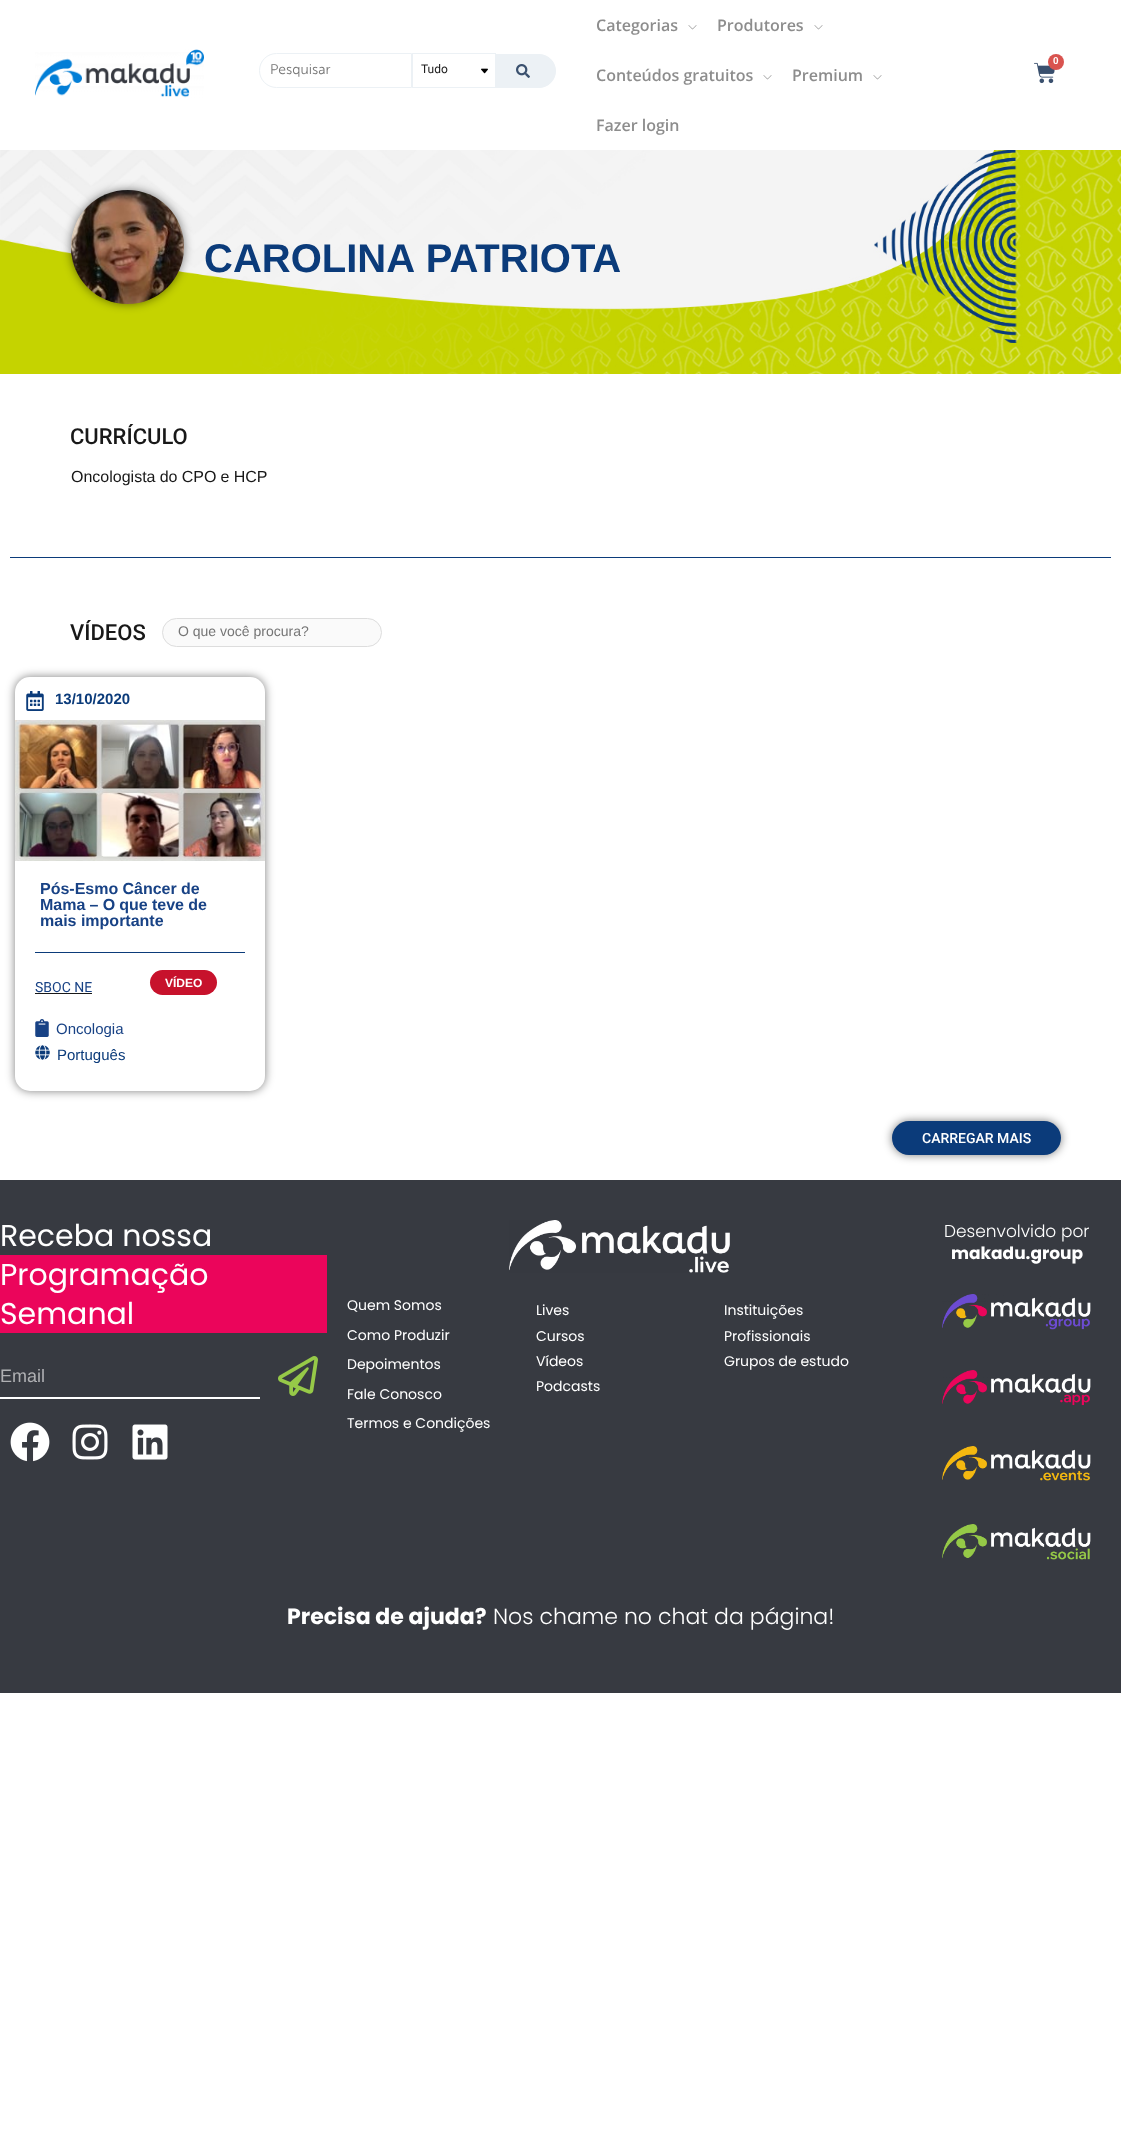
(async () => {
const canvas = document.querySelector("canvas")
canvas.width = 1121
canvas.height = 2156
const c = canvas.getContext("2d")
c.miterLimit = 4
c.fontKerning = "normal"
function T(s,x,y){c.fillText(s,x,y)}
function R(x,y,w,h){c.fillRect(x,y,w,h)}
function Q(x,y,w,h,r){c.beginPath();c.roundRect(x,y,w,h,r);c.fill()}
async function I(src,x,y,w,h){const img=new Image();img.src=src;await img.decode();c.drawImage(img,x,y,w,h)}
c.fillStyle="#fff"
R(0,0,1121,2156)
await I("1.png",35,49,169,49)
c.beginPath()
c.roundRect(259.5,53.5,152,34,[17,0,0,17])
c.strokeStyle="#ecf1f5"
c.stroke()
c.font="300 14px Museo Sans"
c.fillStyle="#757575"
T("Pesquisar",270,74)
c.fillStyle="#ecf1f5"
c.beginPath()
c.roundRect(495.5,54.5,60,33,[0,16.5,16.5,0])
c.fill()
c.stroke()
c.strokeRect(412.5,53.5,83,34)
c.font="12px Roboto"
c.fillStyle="#181818"
T("Tudo",421,73)
await I("2.png",481,68,7,6)
await I("3.png",516,64,14,14)
c.font="600 16px Open Sans"
c.fillStyle="#8d8d8d"
T("Categorias",596,31)
await I("4.png",688,25,9,5)
T("Produtores",717,31)
await I("4.png",814,25,9,5)
T("Conteúdos gratuitos",596,81)
await I("4.png",763,75,9,5)
T("Premium",792,81)
await I("4.png",873,75,9,5)
T("Fazer login",596,131)
await I("5.png",1034,62,21,22)
c.fillStyle="#d9534f"
c.beginPath()
c.arc(1056,62,8,0,7)
c.fill()
c.font="bold 10px Liberation Sans"
c.fillStyle="#fff"
T("0",1053,64)
await I("6.png",0,150,1121,224)
c.fillStyle="#00000080"
c.filter="blur(5px)"
c.beginPath()
c.roundRect(71,190,113,114,56.5)
c.fill()
c.filter="none"
await I("7.png",71,190,113,114)
c.wordSpacing="1px"
c.font="bold 40px Liberation Sans"
c.fillStyle="#0b3b7a"
T("CAROLINA PATRIOTA",204,272)
c.wordSpacing="0px"
c.font="500 22px Roboto"
c.fillStyle="#181818"
T("CURRÍCULO",70,444)
c.wordSpacing="-0.25px"
c.font="16px Liberation Sans"
T("Oncologista do CPO e HCP",71,482)
c.fillStyle="#0b3b7a"
R(10,557,1101,1)
c.wordSpacing="0px"
c.font="500 22px Roboto"
c.fillStyle="#181818"
T("VÍDEOS",70,640)
c.fillStyle="#fafafa"
c.beginPath()
c.roundRect(162.5,618.5,219,28,14)
c.fill()
c.strokeStyle="#ddd"
c.stroke()
c.font="14px Liberation Sans"
c.fillStyle="#757575"
T("O que você procura?",178,636)
c.fillStyle="#00000080"
c.filter="blur(5px)"
c.beginPath()
c.roundRect(15,677,250,414,15)
c.fill()
c.filter="none"
c.fillStyle="#fff"
Q(15,677,250,414,15)
await I("8.png",26,691,18,20)
c.font="bold 15px Liberation Sans"
c.fillStyle="#0b3b7a"
T("13/10/2020",55,704)
await I("9.png",15,720,250,141)
c.wordSpacing="-0.25px"
c.font="bold 16px Liberation Sans"
c.fillStyle="#184285"
T("Pós-Esmo Câncer de",40,894)
T("Mama – O que teve de",40,910)
c.wordSpacing="0px"
T("mais importante",40,926)
c.fillStyle="#0b3b7a"
R(35,952,210,1)
c.font="14px Roboto"
c.fillStyle="#184285"
T("SBOC NE",35,992)
c.fillStyle="#181818"
R(35,993,57,1)
c.fillStyle="#c7122c"
Q(150,970,67,25,12.5)
c.font="bold 12px Liberation Sans"
c.fillStyle="#fff"
T("VÍDEO",165,987)
await I("10.png",35,1019,14,18)
c.font="15px Liberation Sans"
c.fillStyle="#184285"
T("Oncologia",56,1034)
await I("11.png",35,1045,15,15)
c.fillStyle="#0b3b7a"
T("Português",57,1060)
c.fillStyle="#00000080"
c.filter="blur(5px)"
c.beginPath()
c.roundRect(892,1121,169,34,17)
c.fill()
c.filter="none"
c.fillStyle="#0b3b7a"
Q(892,1121,169,34,17)
c.font="500 14px Roboto"
c.fillStyle="#fff"
T("CARREGAR MAIS",922,1143)
c.fillStyle="#373a41"
R(0,1180,1121,513)
c.font="30px Poppins"
c.fillStyle="#fff"
T("Receba nossa",0,1246)
c.fillStyle="#eb055b"
R(0,1255,327,78)
c.fillStyle="#fff"
T("Programação",0,1285)
T("Semanal",0,1324)
R(0,1397,260,2)
c.font="18px Liberation Sans"
c.fillStyle="#afb0b3"
T("Email",0,1382)
await I("12.png",278,1356,40,40)
await I("13.png",10,1422,40,40)
await I("14.png",72,1424,36,36)
await I("15.png",132,1424,36,36)
c.font="300 17px Poppins"
c.fillStyle="#fff"
T("Desenvolvido por",944,1237)
c.font="bold 17px Poppins"
T("makadu.group",951,1259)
await I("16.png",942,1294,149,36)
await I("17.png",942,1370,149,36)
await I("18.png",942,1446,149,35)
await I("19.png",942,1524,149,36)
await I("20.png",509,1220,221,53)
c.font="14px Poppins"
T("Quem Somos",347,1310)
T("Como Produzir",347,1340)
T("Depoimentos",347,1369)
T("Fale Conosco",347,1399)
T("Termos e Condições",347,1428)
T("Lives",536,1315)
T("Cursos",536,1341)
T("Vídeos",536,1366)
T("Podcasts",536,1391)
T("Instituições",724,1315)
T("Profissionais",724,1341)
T("Grupos de estudo",724,1366)
c.font="bold 22px Poppins"
T("Precisa de ajuda?",287,1624)
c.font="300 22px Poppins"
T("Nos chame no chat da página!",493,1624)
})()
